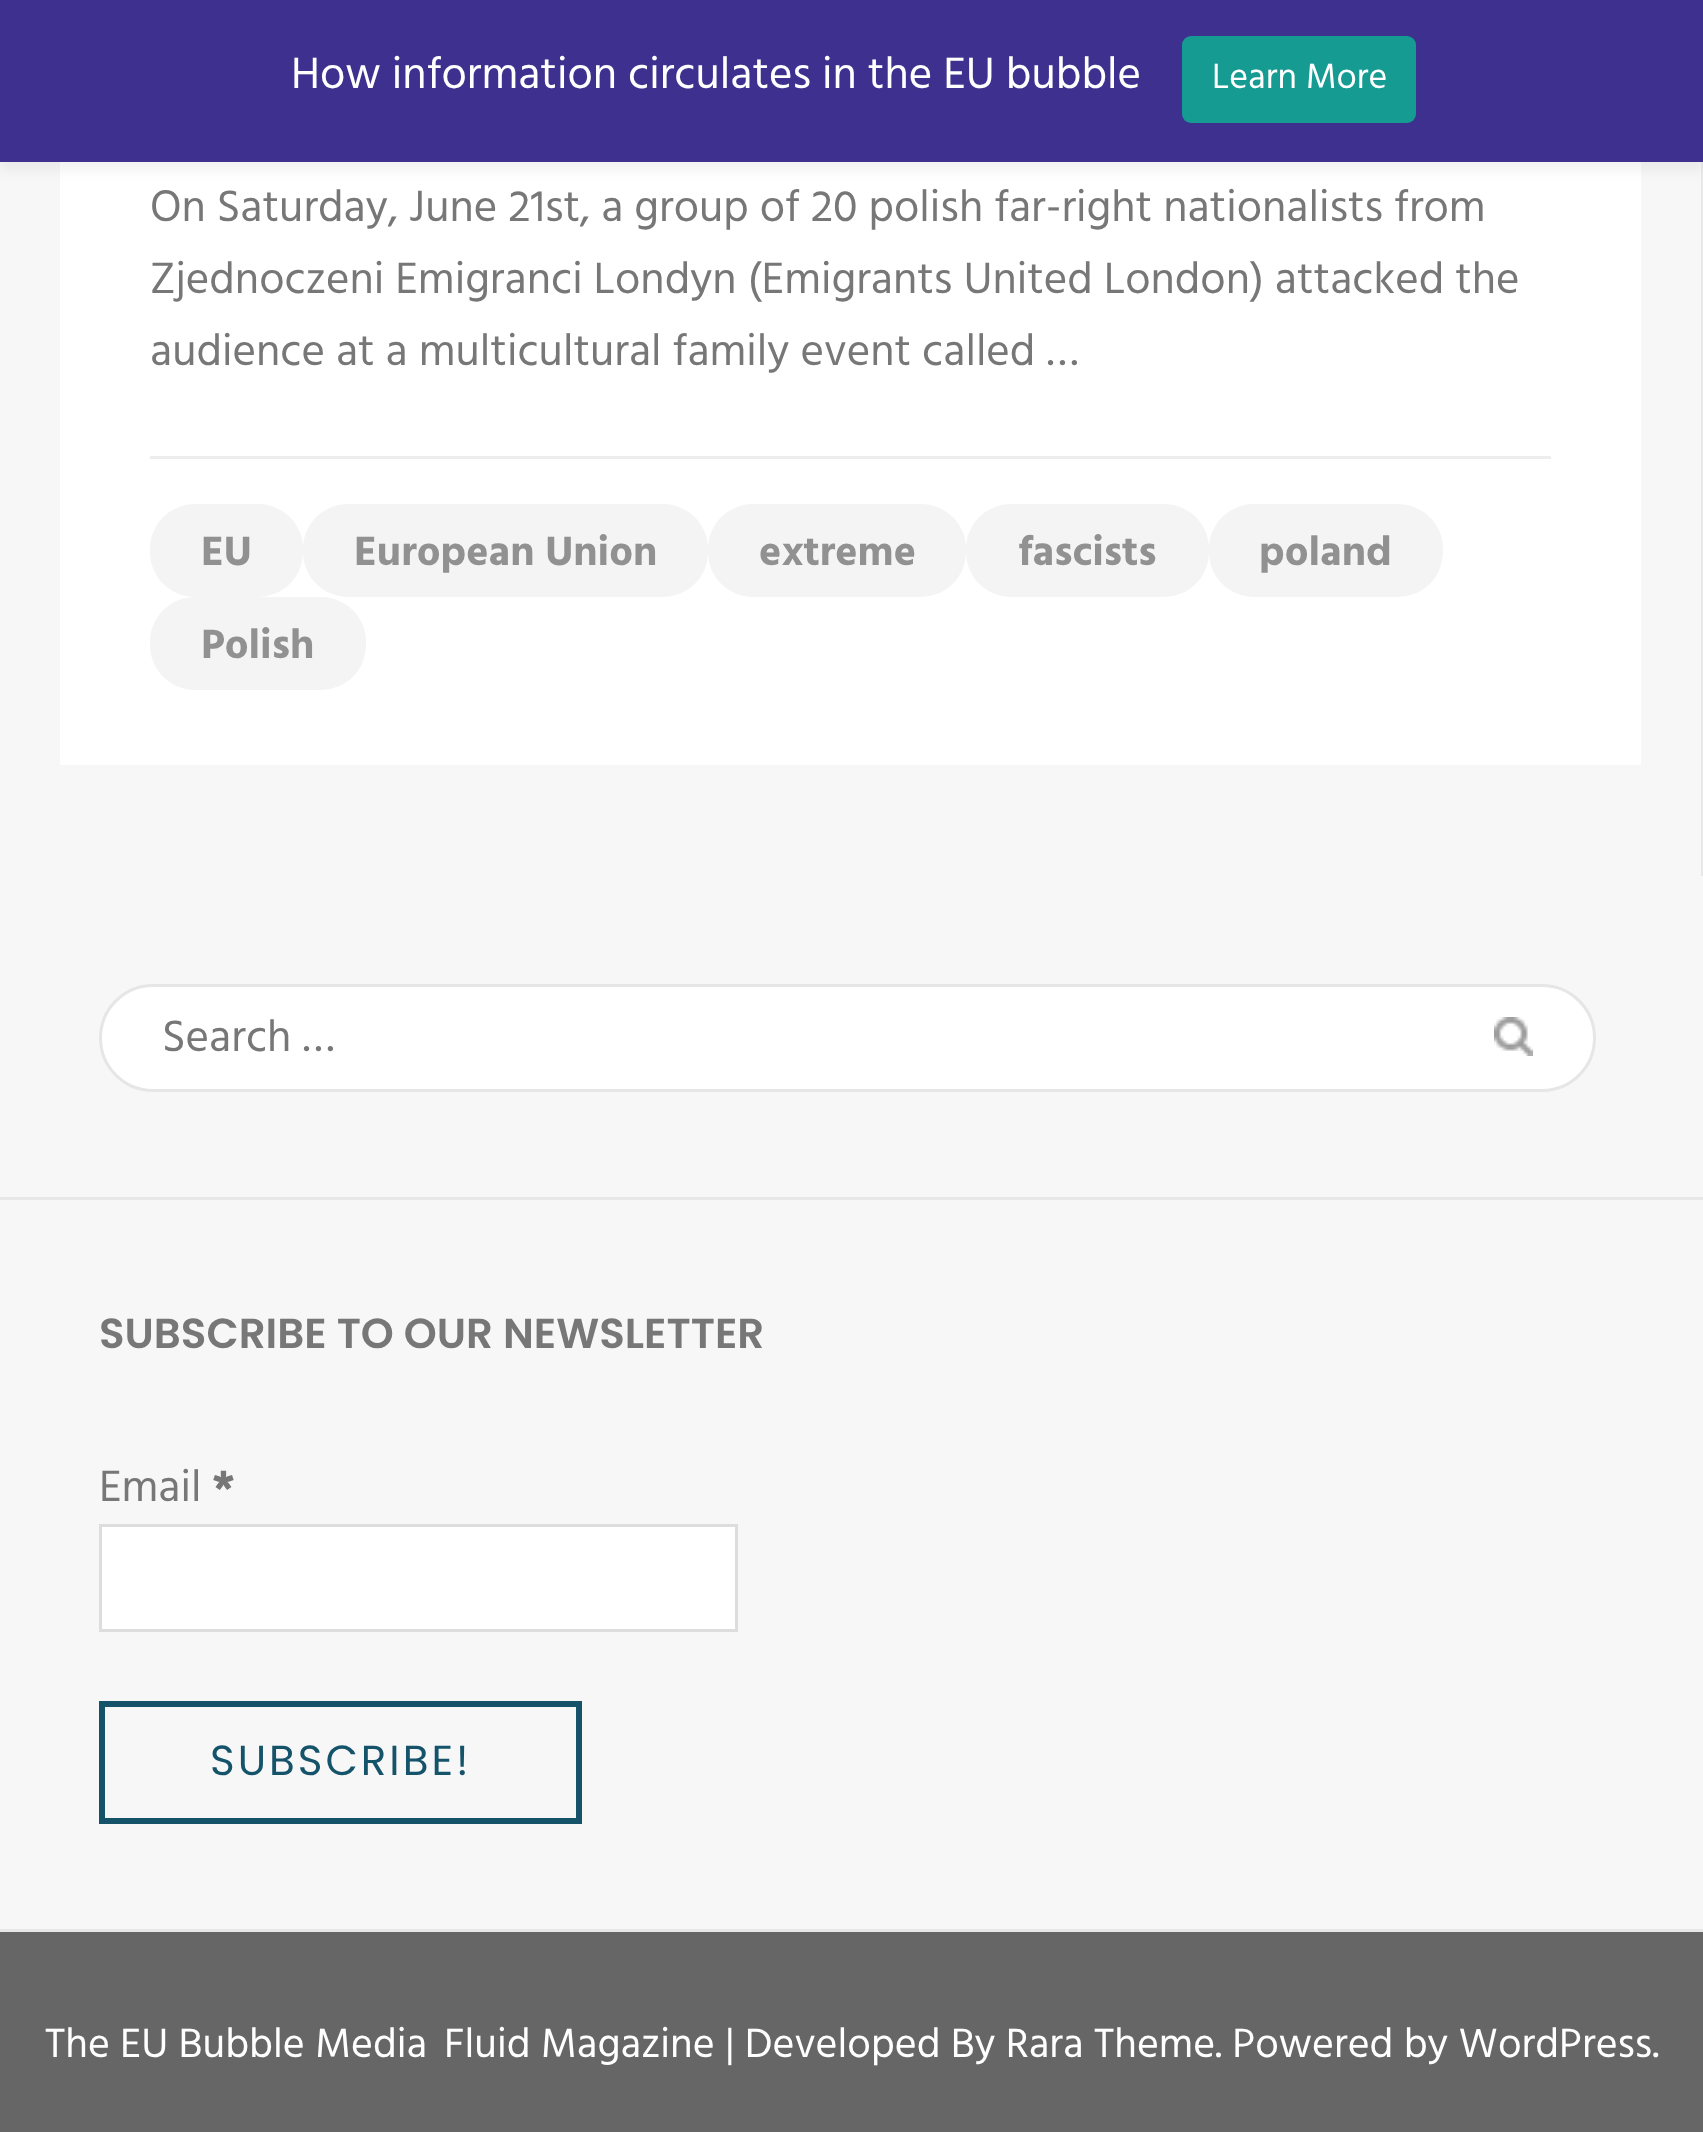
(async () => {
const canvas = document.querySelector("canvas")
canvas.width = 1703
canvas.height = 2132
const c = canvas.getContext("2d")
c.miterLimit = 4
c.fontKerning = "normal"
function T(s,x,y){c.fillText(s,x,y)}
function R(x,y,w,h){c.fillRect(x,y,w,h)}
function Q(x,y,w,h,r){c.beginPath();c.roundRect(x,y,w,h,r);c.fill()}
async function I(src,x,y,w,h){const img=new Image();img.src=src;await img.decode();c.drawImage(img,x,y,w,h)}
c.fillStyle="#f7f7f7"
R(0,0,1703,2132)
c.fillStyle="#e8e8e8"
R(1701,162,2,714)
c.fillStyle="#fff"
R(60,162,1581,603)
c.fillStyle="#0000000d"
c.filter="blur(6px)"
c.beginPath()
c.rect(0,9,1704,162)
c.fill()
c.filter="none"
c.fillStyle="#3e308e"
R(0,0,1703,162)
c.font="45px Hind"
c.fillStyle="#fff"
T("How information circulates in the EU bubble",291,88)
c.fillStyle="#159b92"
Q(1182,36,234,87,9)
c.font="36px Hind"
c.fillStyle="#fff"
T("Learn More",1212,88)
c.font="45px Hind"
c.fillStyle="#777"
T("On Saturday, June 21st, a group of 20 polish far-right nationalists from",150,221)
T("Zjednoczeni Emigranci Londyn (Emigrants United London) attacked the",150,293)
T("audience at a multicultural family event called …",150,365)
c.fillStyle="#ededed"
R(150,456,1401,3)
c.fillStyle="#f4f4f4"
Q(150,504,153,93,45)
c.font="bold 42px Hind"
c.fillStyle="#919191"
T("EU",201,565)
c.fillStyle="#f4f4f4"
Q(303,504,405,93,45)
c.fillStyle="#919191"
T("European Union",354,565)
c.fillStyle="#f4f4f4"
Q(708,504,258,93,45)
c.fillStyle="#919191"
T("extreme",759,565)
c.fillStyle="#f4f4f4"
Q(966,504,243,93,45)
c.fillStyle="#919191"
T("fascists",1018,565)
c.fillStyle="#f4f4f4"
Q(1209,504,234,93,45)
c.fillStyle="#919191"
T("poland",1259,565)
c.fillStyle="#f4f4f4"
Q(150,597,216,93,45)
c.fillStyle="#919191"
T("Polish",201,658)
c.fillStyle="#e8e8e8"
R(0,1197,1703,3)
c.fillStyle="#fff"
c.beginPath()
c.roundRect(100.5,985.5,1494,105,52.5)
c.fill()
c.strokeStyle="#e6e6e6"
c.lineWidth=3
c.stroke()
c.font="45px Hind"
c.fillStyle="#777"
T("Search …",162,1051)
await I("1.png",1494,1017,39,39)
c.fillStyle="#e8e8e8"
R(0,1929,1703,3)
c.font="600 42px Poppins"
c.fillStyle="#777"
T("SUBSCRIBE TO OUR NEWSLETTER",99,1348)
c.font="45px Hind"
T("Email",99,1501)
c.font="bold 45px Hind"
T("*",212,1501)
c.fillStyle="#fff"
c.beginPath()
c.rect(100.5,1525.5,636,105)
c.fill()
c.strokeStyle="#ddd"
c.stroke()
c.strokeStyle="#145369"
c.lineWidth=6
c.strokeRect(102,1704,477,117)
c.letterSpacing="3px"
c.font="42px Poppins"
c.fillStyle="#145369"
T("SUBSCRIBE!",210,1775)
c.fillStyle="#666"
R(0,1932,1703,200)
c.letterSpacing="0px"
c.font="42px Hind"
c.fillStyle="#fff"
T("The EU Bubble Media",45,2057)
T("Fluid Magazine | Developed By Rara Theme. Powered by WordPress.",444,2057)
})()
